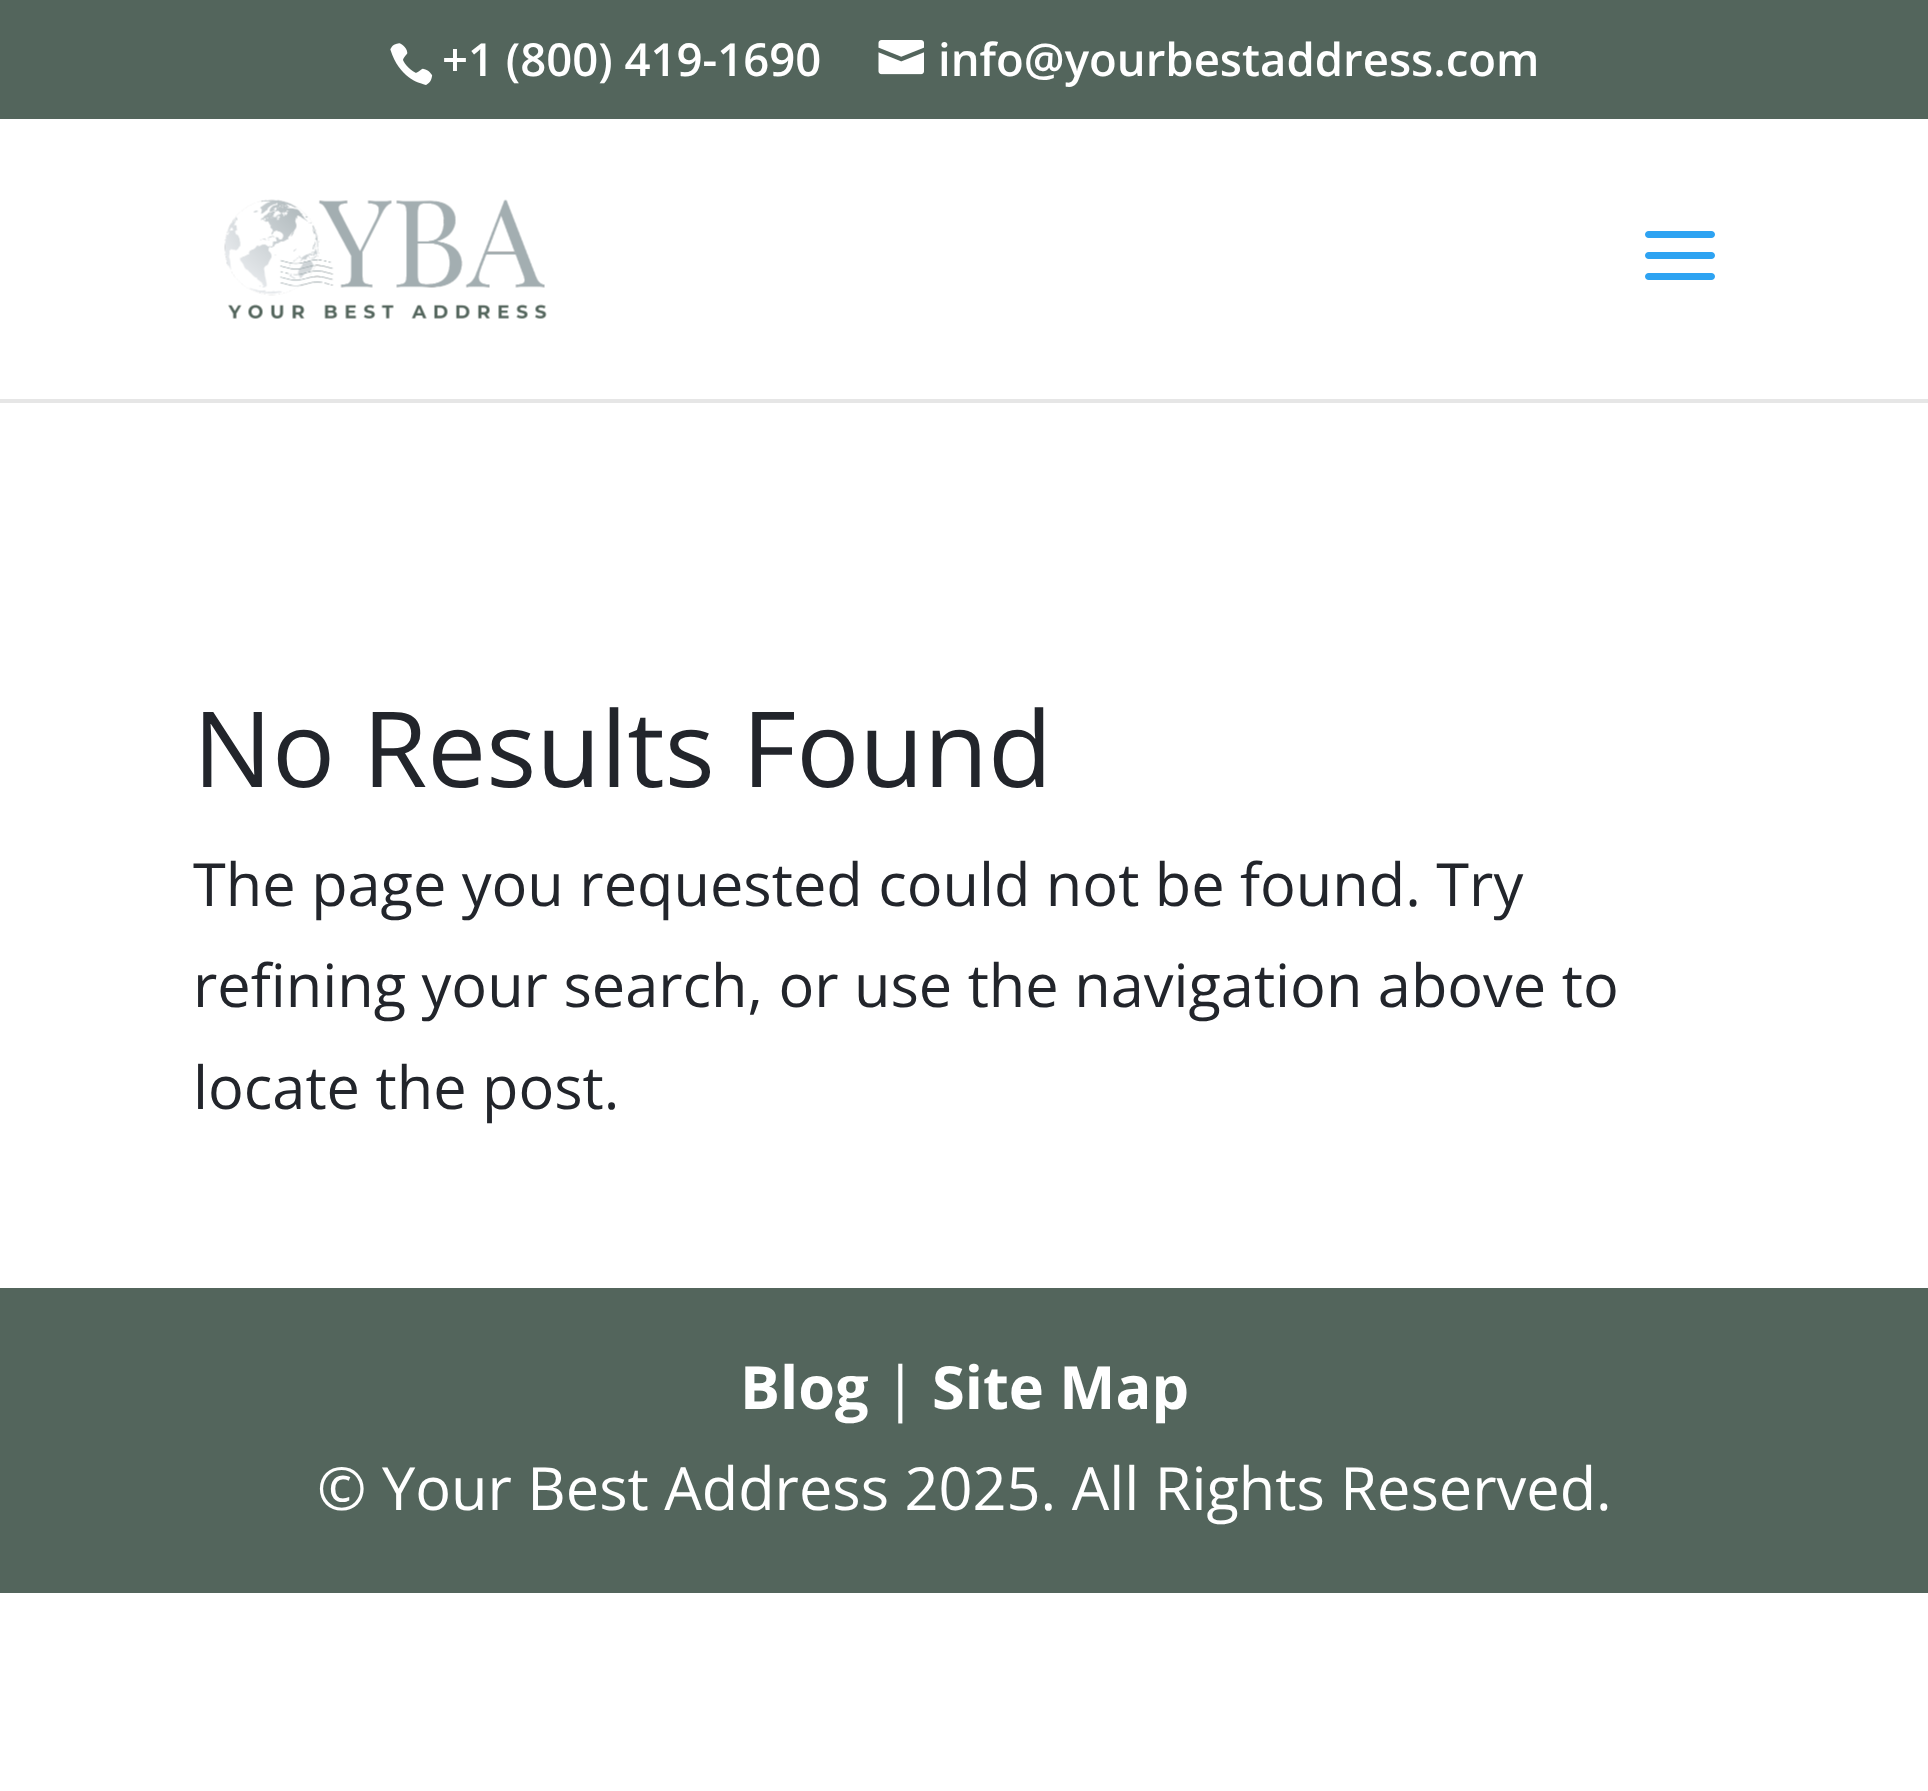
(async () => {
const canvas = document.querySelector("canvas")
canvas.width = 1928
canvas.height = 1791
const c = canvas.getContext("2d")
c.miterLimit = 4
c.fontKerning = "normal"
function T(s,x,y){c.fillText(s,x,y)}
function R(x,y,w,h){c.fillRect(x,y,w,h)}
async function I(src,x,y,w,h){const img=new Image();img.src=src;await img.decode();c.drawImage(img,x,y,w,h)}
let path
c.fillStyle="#fff"
R(0,0,1928,1791)
c.fillStyle="#53655c"
R(0,0,1928,119)
await I("1.png",390,43,43,42)
c.font="600 45.5px Open Sans"
c.fillStyle="#fff"
T("+1 (800) 419-1690",442,76)
await I("2.png",878,40,46,35)
T("info@yourbestaddress.com",938,76)
c.fillStyle="#e6e6e6"
path = new Path2D("M0 399v4h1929v-280h-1v276z")
c.fill(path)
await I("3.png",224,199,323,120)
await I("4.png",1645,231,70,49)
c.font="105px Open Sans"
c.fillStyle="#22252b"
T("No Results Found",193,787)
c.font="59.5px Open Sans"
T("The page you requested could not be found. Try",193,906)
T("refining your search, or use the navigation above to",193,1007)
T("locate the post.",193,1109)
c.fillStyle="#53655c"
R(0,1288,1928,305)
c.font="bold 59.5px Open Sans"
c.fillStyle="#fff"
T("Blog",740,1409)
c.font="59.5px Open Sans"
T("|",884,1409)
c.font="bold 59.5px Open Sans"
T("Site Map",932,1409)
c.font="59.5px Open Sans"
T("© Your Best Address 2025. All Rights Reserved.",317,1510)
})()
